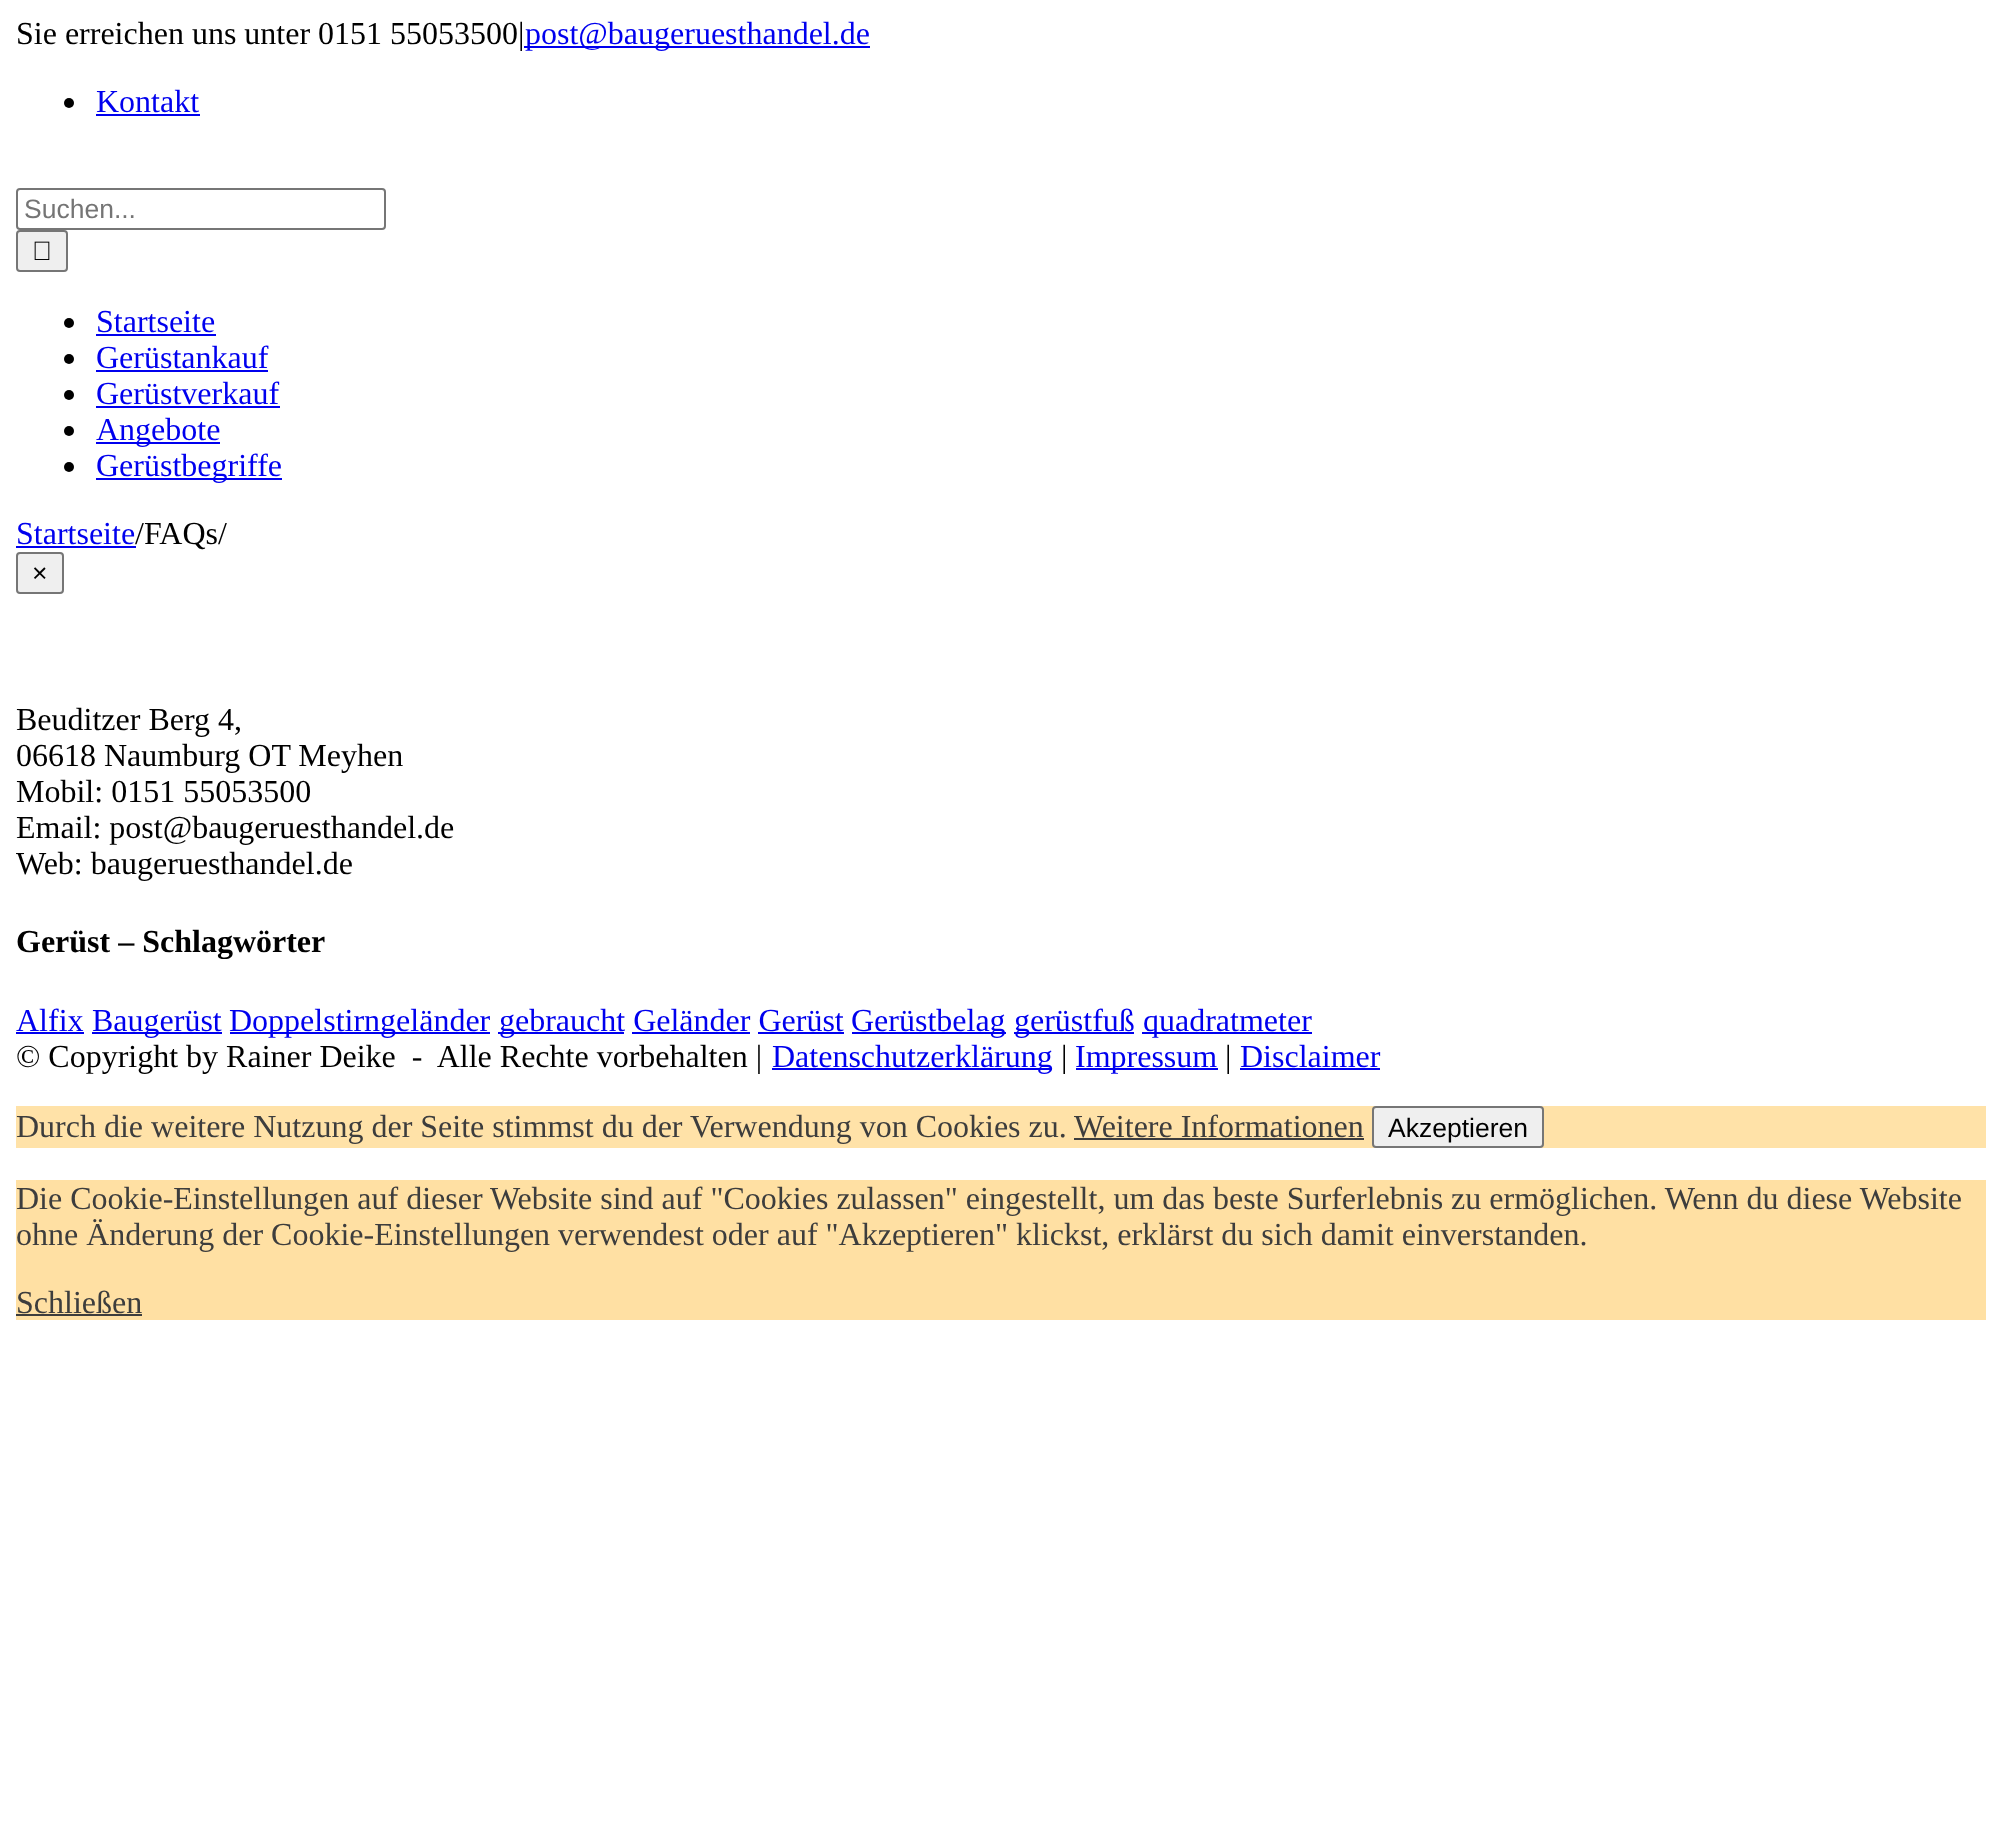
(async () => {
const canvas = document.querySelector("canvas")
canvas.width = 2002
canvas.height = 1825
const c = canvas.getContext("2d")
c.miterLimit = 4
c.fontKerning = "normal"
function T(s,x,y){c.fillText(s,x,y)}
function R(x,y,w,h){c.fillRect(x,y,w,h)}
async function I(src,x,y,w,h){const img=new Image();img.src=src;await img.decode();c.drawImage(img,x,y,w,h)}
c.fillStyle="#fff"
R(0,0,2002,1825)
c.font="32px Liberation Serif"
c.fillStyle="#000"
T("Sie erreichen uns unter 0151 55053500|",16,44)
c.fillStyle="#00e"
R(524,46,346,2)
T("post@baugeruesthandel.de",525,44)
c.fillStyle="#000"
c.beginPath()
c.arc(69,103,5,0,7)
c.fill()
c.fillStyle="#00e"
T("Kontakt",96,112)
R(96,114,104,2)
c.beginPath()
c.roundRect(17,189,368,40,3)
c.strokeStyle="#767676"
c.lineWidth=2
c.stroke()
c.font="26.5px Liberation Sans"
c.fillStyle="#757575"
T("Suchen...",24,218)
c.fillStyle="#efefef"
c.beginPath()
c.roundRect(17,231,50,40,3)
c.fill()
c.stroke()
await I("1.png",34,241,16,19)
c.fillStyle="#000"
c.beginPath()
c.arc(69,323,5,0,7)
c.fill()
c.font="32px Liberation Serif"
c.fillStyle="#00e"
T("Startseite",96,332)
R(96,334,120,2)
c.fillStyle="#000"
c.beginPath()
c.arc(69,359,5,0,7)
c.fill()
c.fillStyle="#00e"
T("Gerüstankauf",96,368)
R(96,370,172,2)
c.fillStyle="#000"
c.beginPath()
c.arc(69,395,5,0,7)
c.fill()
c.fillStyle="#00e"
T("Gerüstverkauf",96,404)
R(96,406,184,2)
c.fillStyle="#000"
c.beginPath()
c.arc(69,431,5,0,7)
c.fill()
c.fillStyle="#00e"
R(96,442,124,2)
T("Angebote",96,440)
c.fillStyle="#000"
c.beginPath()
c.arc(69,467,5,0,7)
c.fill()
c.fillStyle="#00e"
R(96,478,186,2)
T("Gerüstbegriffe",96,476)
T("Startseite",16,544)
R(16,546,120,2)
c.fillStyle="#000"
T("/FAQs/",135,544)
c.fillStyle="#efefef"
c.beginPath()
c.roundRect(17,553,46,40,3)
c.fill()
c.stroke()
c.font="26.5px Liberation Sans"
c.fillStyle="#000"
T("×",32,582)
c.font="32px Liberation Serif"
T("Beuditzer Berg 4,",16,730)
T("06618 Naumburg OT Meyhen",16,766)
T("Mobil: 0151 55053500",16,802)
T("Email: post@baugeruesthandel.de",16,838)
T("Web: baugeruesthandel.de",16,874)
c.font="bold 32px Liberation Serif"
T("Gerüst – Schlagwörter",16,952)
c.font="32px Liberation Serif"
c.fillStyle="#00e"
T("Alfix",16,1031)
R(16,1032,68,2)
R(92,1032,130,2)
T("Baugerüst",92,1031)
R(230,1032,260,2)
T("Doppelstirngeländer",229,1031)
R(498,1032,126,2)
T("gebraucht Geländer Gerüst",499,1031)
R(852,1032,154,2)
T("Gerüstbelag",851,1031)
R(1014,1032,120,2)
T("gerüstfuß",1014,1031)
R(1142,1032,170,2)
T("quadratmeter",1143,1031)
R(632,1032,118,2)
R(758,1032,86,2)
c.fillStyle="#000"
T("© Copyright by Rainer Deike  -  Alle Rechte vorbehalten |",16,1067)
c.fillStyle="#00e"
R(772,1068,280,2)
T("Datenschutzerklärung",772,1067)
c.fillStyle="#000"
T("|",1061,1067)
c.fillStyle="#00e"
R(1076,1068,142,2)
T("Impressum",1075,1067)
c.fillStyle="#000"
T("|",1225,1067)
c.fillStyle="#00e"
T("Disclaimer",1240,1067)
R(1240,1068,140,2)
c.fillStyle="#ffe2a8"
R(16,1106,1970,42)
c.fillStyle="#3d3d3d"
T("Durch die weitere Nutzung der Seite stimmst du der Verwendung von Cookies zu.",16,1137)
T("Weitere Informationen",1074,1137)
R(1074,1138,290,2)
c.fillStyle="#efefef"
c.beginPath()
c.roundRect(1373,1107,170,40,3)
c.fill()
c.stroke()
c.font="26.5px Liberation Sans"
c.fillStyle="#000"
T("Akzeptieren",1388,1137)
c.fillStyle="#ffe0a3"
R(16,1180,1970,140)
c.font="32px Liberation Serif"
c.fillStyle="#3d3d3d"
T("Die Cookie-Einstellungen auf dieser Website sind auf \"Cookies zulassen\" eingestellt, um das beste Surferlebnis zu ermöglichen. Wenn du diese Website",16,1209)
T("ohne Änderung der Cookie-Einstellungen verwendest oder auf \"Akzeptieren\" klickst, erklärst du sich damit einverstanden.",16,1245)
T("Schließen",16,1313)
R(16,1314,126,2)
})()
